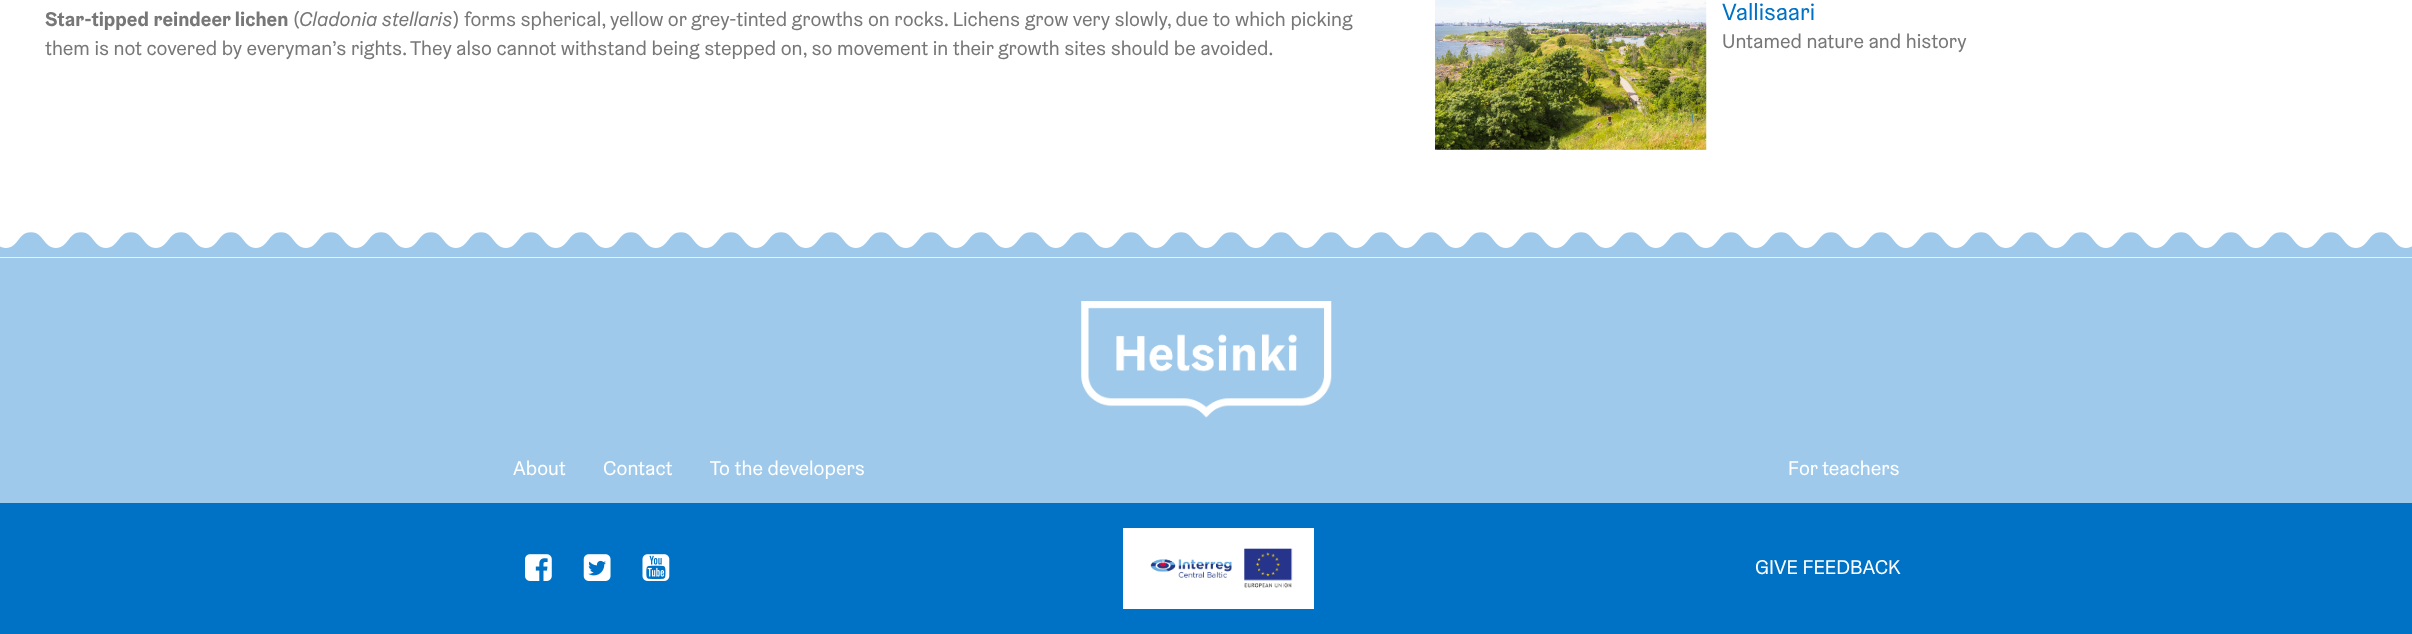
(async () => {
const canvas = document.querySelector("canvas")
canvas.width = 2412
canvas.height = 634
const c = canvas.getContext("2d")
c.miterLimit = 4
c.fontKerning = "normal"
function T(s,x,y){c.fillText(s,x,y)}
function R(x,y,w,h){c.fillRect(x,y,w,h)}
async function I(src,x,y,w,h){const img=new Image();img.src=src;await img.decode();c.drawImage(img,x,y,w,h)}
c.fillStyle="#fff"
R(0,0,2412,634)
c.font="bold 20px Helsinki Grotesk"
c.fillStyle="#777"
T("Star-tipped reindeer lichen",45,26)
c.font="20px Helsinki Grotesk"
T("(",293,26)
c.font="italic 20px Helsinki Grotesk"
T("Cladonia stellaris",299,26)
c.font="20px Helsinki Grotesk"
T(") forms spherical, yellow or grey-tinted growths on rocks. Lichens grow very slowly, due to which picking",453,26)
T("them is not covered by everyman’s rights. They also cannot withstand being stepped on, so movement in their growth sites should be avoided.",45,55)
await I("1.png",1435,0,272,150)
c.font="23.5px Helsinki Grotesk"
c.fillStyle="#0072c6"
T("Vallisaari",1722,20)
c.font="20px Helsinki Grotesk"
c.fillStyle="#777"
T("Untamed nature and history",1722,48)
await I("2.png",0,232,2412,26)
c.fillStyle="#9fc9eb"
R(0,258,2412,245)
await I("3.png",1081,301,251,117)
c.fillStyle="#fff"
T("About",513,475)
T("Contact",603,475)
T("To the developers",710,475)
T("For teachers",1788,475)
c.fillStyle="#0072c6"
R(0,503,2412,131)
await I("4.png",525,554,27,27)
await I("5.png",583,554,28,27)
await I("6.png",642,554,28,27)
c.fillStyle="#fff"
R(1123,528,191,81)
await I("7.png",1150,559,82,19)
await I("8.png",1244,548,49,40)
T("GIVE FEEDBACK",1755,574)
})()
